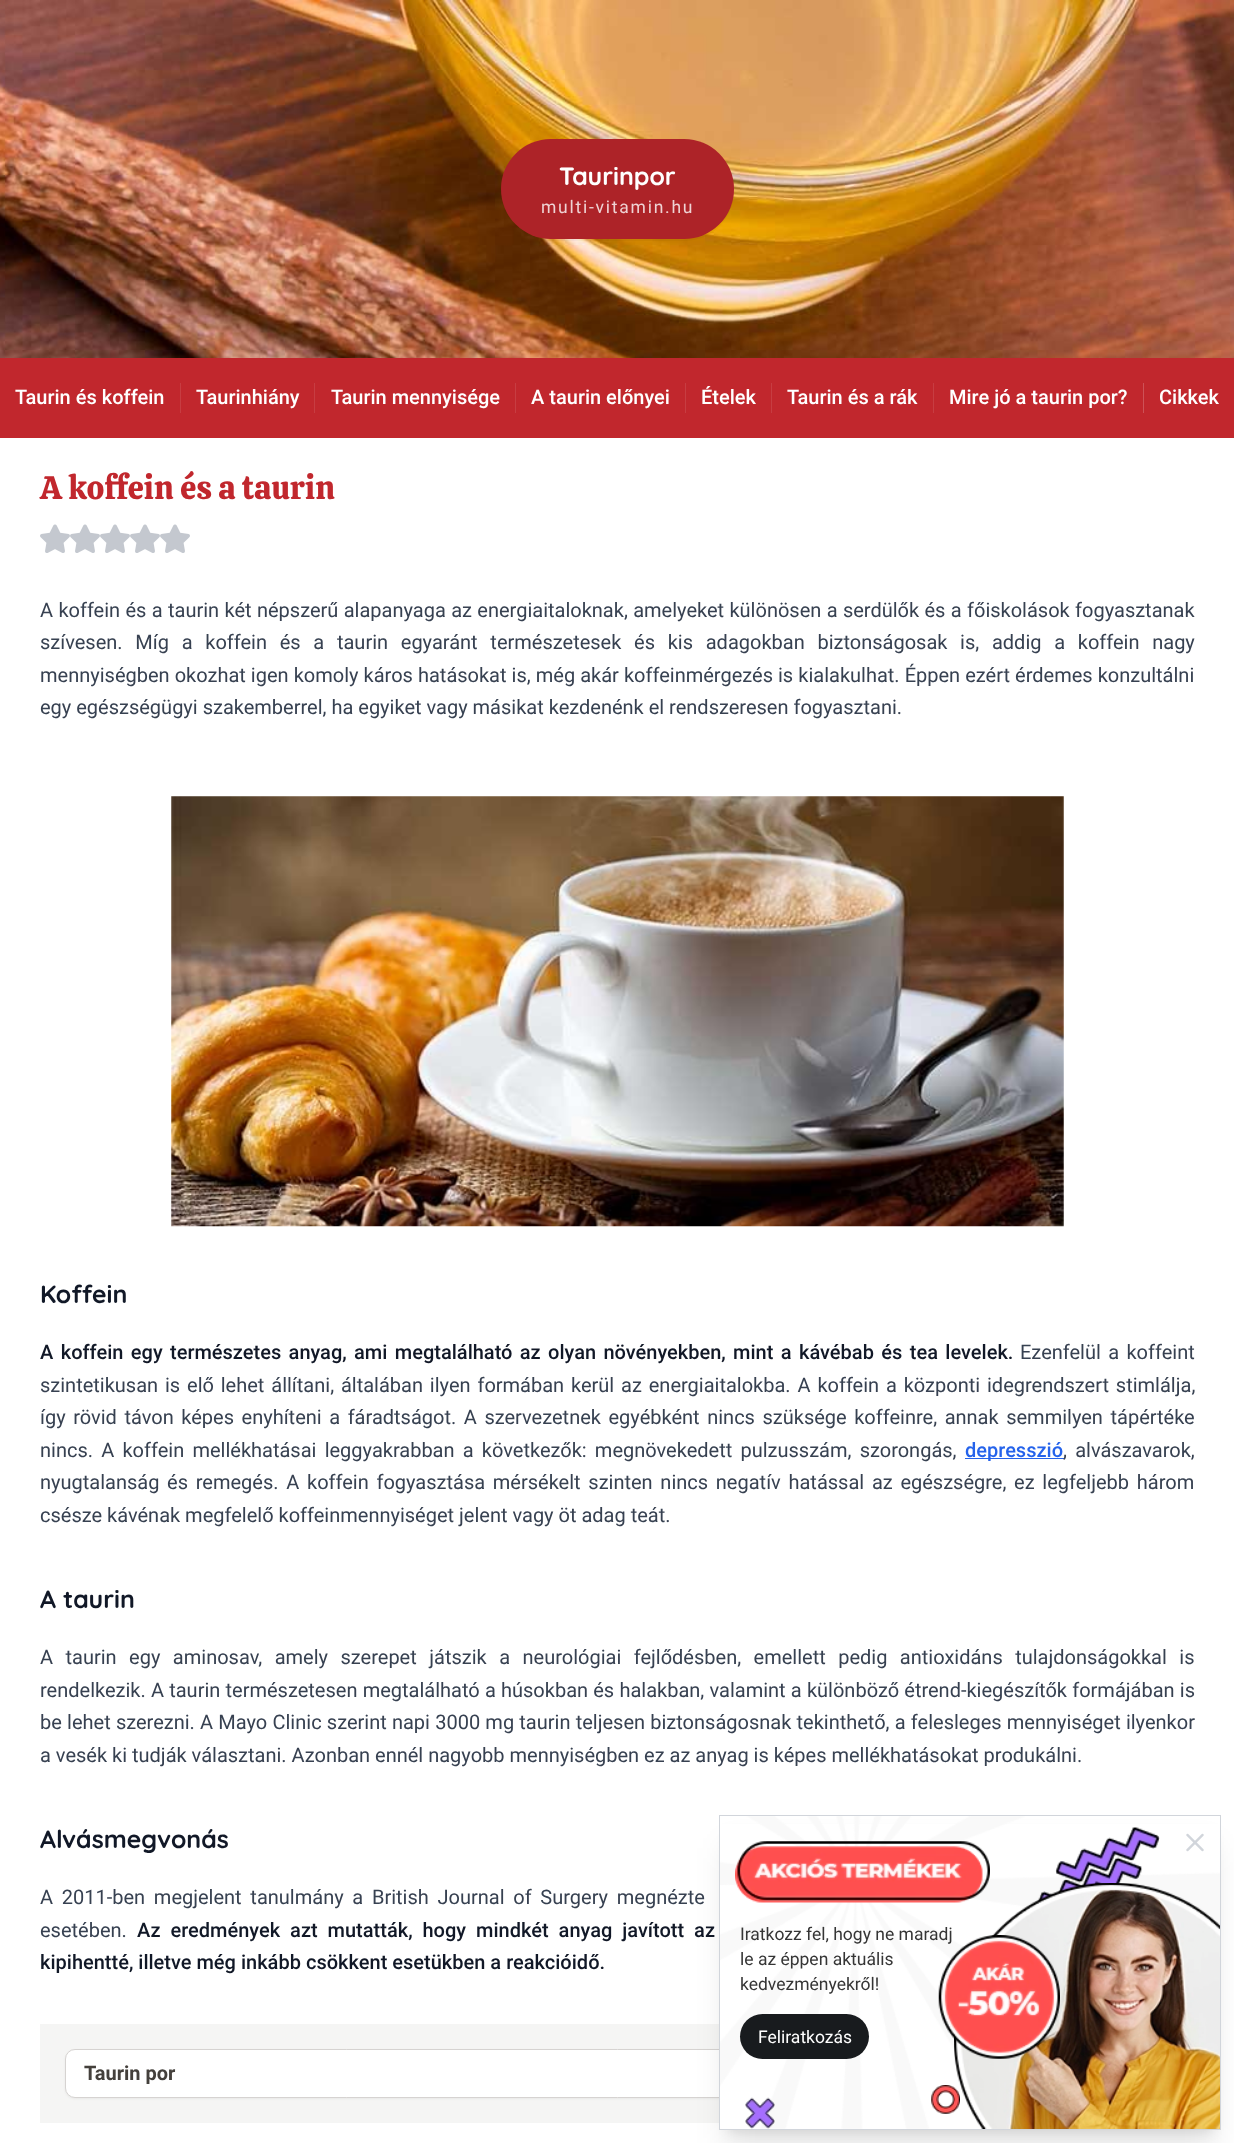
(async () => {
const canvas = document.querySelector("canvas")
canvas.width = 1234
canvas.height = 2143
const c = canvas.getContext("2d")
c.miterLimit = 4
c.fontKerning = "normal"
function T(s,x,y){c.fillText(s,x,y)}
function R(x,y,w,h){c.fillRect(x,y,w,h)}
function Q(x,y,w,h,r){c.beginPath();c.roundRect(x,y,w,h,r);c.fill()}
async function I(src,x,y,w,h){const img=new Image();img.src=src;await img.decode();c.drawImage(img,x,y,w,h)}
let path
c.fillStyle="#fff"
R(0,0,1234,2143)
await I("1.png",0,0,1234,358)
c.fillStyle="#00000008"
path = new Path2D("M501 184v7c0 28 22 50 50 50h133c28 0 50-22 50-50v-7v5c0 27-23 50-50 50h-133c-27 0-50-23-50-50z")
c.fill(path)
c.fillStyle="#c1272d"
Q(501,139,233,100,50)
c.fillStyle="#0000001a"
Q(501,139,233,100,50)
c.font="bold 25px Quicksand"
c.fillStyle="#fff"
T("Taurinpor",559,185)
c.letterSpacing="1.75px"
c.font="17.5px Roboto"
c.fillStyle="#efd3d4"
T("multi-vitamin.hu",541,213)
c.fillStyle="#c1272d"
R(0,358,1234,80)
c.fillStyle="#c73d42"
R(180,383,1,30)
c.letterSpacing="0px"
c.font="500 20px Roboto"
c.fillStyle="#fff"
T("Taurin és koffein",15,404)
c.fillStyle="#c73d42"
R(314,383,1,30)
c.fillStyle="#fff"
T("Taurinhiány",196,404)
c.fillStyle="#c73d42"
R(515,383,1,30)
c.fillStyle="#fff"
T("Taurin mennyisége",331,404)
c.fillStyle="#c73d42"
R(685,383,1,30)
c.fillStyle="#fff"
T("A taurin előnyei",531,404)
c.fillStyle="#c73d42"
R(771,383,1,30)
c.fillStyle="#fff"
T("Ételek",701,404)
c.fillStyle="#c73d42"
R(933,383,1,30)
c.fillStyle="#fff"
T("Taurin és a rák",787,404)
T("Mire jó a taurin por?",949,404)
c.fillStyle="#cd5257"
R(1143,383,1,30)
c.fillStyle="#fff"
T("Cikkek",1159,404)
c.font="32.5px Calistoga"
c.fillStyle="#c1272d"
T("A koffein és a taurin",40,499)
await I("2.png",40,524,30,29)
await I("2.png",70,524,30,29)
await I("2.png",100,524,30,29)
await I("2.png",130,524,30,29)
await I("2.png",160,524,30,29)
c.wordSpacing="0.4px"
c.font="20px Roboto"
c.fillStyle="#374151"
T("A koffein és a taurin két népszerű alapanyaga az energiaitaloknak, amelyeket különösen a serdülők és a főiskolások fogyasztanak",40,617)
c.wordSpacing="7.75px"
T("szívesen. Míg a koffein és a taurin egyaránt természetesek és kis adagokban biztonságosak is, addig a koffein nagy",40,649)
c.wordSpacing="0.1px"
T("mennyiségben okozhat igen komoly káros hatásokat is, még akár koffeinmérgezés is kialakulhat. Éppen ezért érdemes konzultálni",40,682)
c.wordSpacing="0px"
T("egy egészségügyi szakemberrel, ha egyiket vagy másikat kezdenénk el rendszeresen fogyasztani.",40,714)
await I("3.png",171,796,893,431)
c.font="bold 25px Quicksand"
c.fillStyle="#111827"
T("Koffein",40,1303)
c.wordSpacing="2.4px"
c.font="500 20px Roboto"
T("A koffein egy természetes anyag, ami megtalálható az olyan növényekben, mint a kávébab és tea levelek.",40,1359)
c.font="20px Roboto"
c.fillStyle="#374151"
T("Ezenfelül a koffeint",1020,1359)
c.wordSpacing="1.9px"
T("szintetikusan is elő lehet állítani, általában ilyen formában kerül az energiaitalokba. A koffein a központi idegrendszert stimlálja,",40,1392)
c.wordSpacing="2.6px"
T("így rövid távon képes enyhíteni a fáradtságot. A szervezetnek egyébként nincs szüksége koffeinre, annak semmilyen tápértéke",40,1424)
c.wordSpacing="3.25px"
T("nincs. A koffein mellékhatásai leggyakrabban a következők: megnövekedett pulzusszám, szorongás,",40,1457)
c.fillStyle="#2563eb"
R(965,1458,99,1)
c.wordSpacing="0px"
c.font="500 20px Roboto"
T("depresszió",965,1457)
c.wordSpacing="3.25px"
c.font="20px Roboto"
c.fillStyle="#374151"
T(", alvászavarok,",1063,1457)
c.wordSpacing="2.75px"
T("nyugtalanság és remegés. A koffein fogyasztása mérsékelt szinten nincs negatív hatással az egészségre, ez legfeljebb három",40,1489)
c.wordSpacing="0px"
T("csésze kávénak megfelelő koffeinmennyiséget jelent vagy öt adag teát.",40,1522)
c.font="bold 25px Quicksand"
c.fillStyle="#111827"
T("A taurin",40,1608)
c.wordSpacing="7.5px"
c.font="20px Roboto"
c.fillStyle="#374151"
T("A taurin egy aminosav, amely szerepet játszik a neurológiai fejlődésben, emellett pedig antioxidáns tulajdonságokkal is",40,1664)
c.wordSpacing="0.25px"
T("rendelkezik. A taurin természetesen megtalálható a húsokban és halakban, valamint a különböző étrend-kiegészítők formájában is",40,1697)
T("be lehet szerezni. A Mayo Clinic szerint napi 3000 mg taurin teljesen biztonságosnak tekinthető, a felesleges mennyiséget ilyenkor",40,1729)
c.wordSpacing="0px"
T("a vesék ki tudják választani. Azonban ennél nagyobb mennyiségben ez az anyag is képes mellékhatásokat produkálni.",40,1762)
c.font="bold 25px Quicksand"
c.fillStyle="#111827"
T("Alvásmegvonás",40,1848)
c.wordSpacing="3.75px"
c.font="20px Roboto"
c.fillStyle="#374151"
T("A 2011-ben megjelent tanulmány a British Journal of Surgery megnézte",40,1904)
c.wordSpacing="0px"
T("esetében.",40,1937)
c.wordSpacing="5px"
c.font="500 20px Roboto"
c.fillStyle="#111827"
T("Az eredmények azt mutatták, hogy mindkét anyag javított az",137,1937)
c.wordSpacing="0px"
T("kipihentté, illetve még inkább csökkent esetükben a reakcióidő.",40,1969)
c.fillStyle="#f5f5f4"
R(40,2024,679,99)
c.fillStyle="#0000000d"
c.filter="blur(1px)"
c.beginPath()
c.roundRect(65,2050,1105,49,10)
c.fill()
c.filter="none"
c.fillStyle="#fff"
c.beginPath()
c.roundRect(65.5,2049.5,1104,48,9.5)
c.fill()
c.strokeStyle="#d6d3d1"
c.stroke()
c.font="bold 20px Roboto"
c.fillStyle="#44403c"
T("Taurin por",84,2080)
c.fillStyle="#0000001a"
c.filter="blur(6px)"
c.beginPath()
c.rect(728,1834,485,297)
c.fill()
c.filter="none"
c.filter="blur(15.5px)"
c.beginPath()
c.rect(726,1848,488,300)
c.fill()
c.filter="none"
c.fillStyle="#fff"
R(720,1824,500,305)
await I("4.png",720,1816,500,313)
c.strokeStyle="#d1d5db"
c.strokeRect(719.5,1815.5,501,314)
await I("5.png",735,1841,255,62)
await I("6.png",1037,1827,123,75)
await I("7.png",1186,1833,18,19)
c.font="17.5px Roboto"
c.fillStyle="#353535"
T("Iratkozz fel, hogy ne maradj",740,1940)
T("le az éppen aktuális",740,1965)
T("kedvezményekről!",740,1990)
await I("8.png",954,1883,266,246)
c.fillStyle="#181b1e"
Q(740,2014,129,45,22.5)
c.fillStyle="#fff"
T("Feliratkozás",758,2043)
await I("9.png",938,1935,122,124)
await I("10.png",745,2097,30,32)
await I("11.png",931,2085,29,29)
})()
